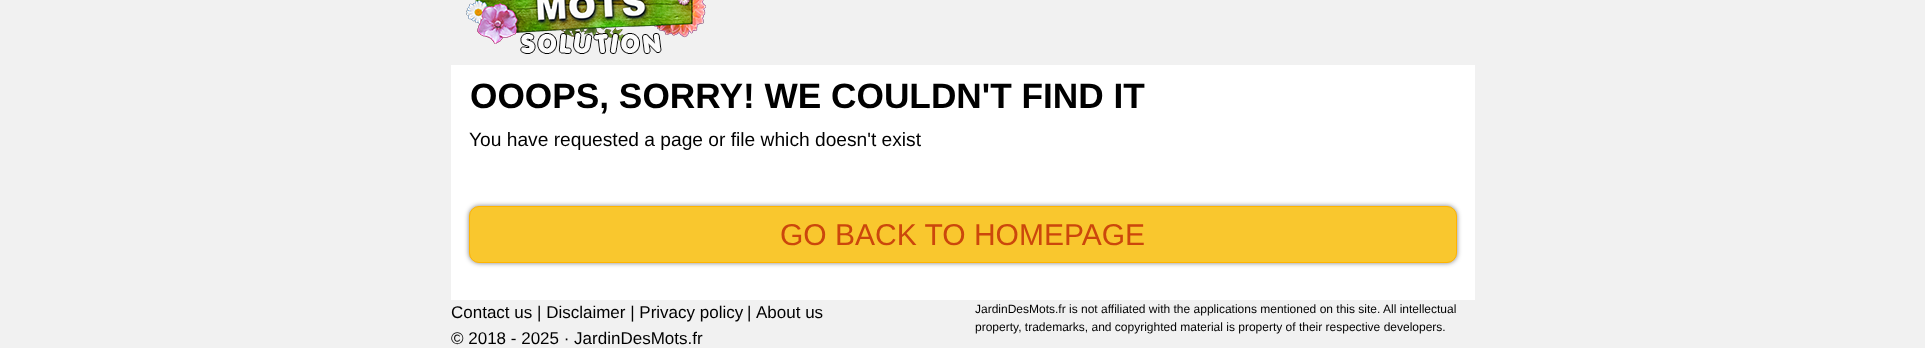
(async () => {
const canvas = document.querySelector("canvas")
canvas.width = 1925
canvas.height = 348
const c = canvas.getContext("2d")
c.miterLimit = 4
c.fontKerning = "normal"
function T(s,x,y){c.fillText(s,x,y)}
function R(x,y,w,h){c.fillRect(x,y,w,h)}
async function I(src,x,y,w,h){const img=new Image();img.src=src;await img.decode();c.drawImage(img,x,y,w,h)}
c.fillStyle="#f1f1f1"
R(0,0,1925,348)
await I("1.png",466,0,240,54)
c.fillStyle="#fff"
R(451,65,1024,235)
c.font="bold 35.25px Liberation Sans"
c.fillStyle="#000"
T("OOOPS, SORRY! WE COULDN'T FIND IT",470,108)
c.font="19.2px Liberation Sans"
T("You have requested a page or file which doesn't exist",469,146)
c.fillStyle="#00000080"
c.filter="blur(2.5px)"
c.beginPath()
c.roundRect(469,206,988,57,10)
c.fill()
c.filter="none"
c.fillStyle="#f9c72e"
c.beginPath()
c.roundRect(469.5,206.5,987,56,9.5)
c.fill()
c.strokeStyle="#ffb400"
c.stroke()
c.font="30px Liberation Sans"
c.fillStyle="#cb470c"
T("GO BACK TO HOMEPAGE",780,245)
c.font="17px Liberation Sans"
c.fillStyle="#000"
T("Contact us | Disclaimer | Privacy policy",451,318)
T("|",747,318)
T("About us",756,318)
c.font="12px Liberation Sans"
T("JardinDesMots.fr is not affiliated with the applications mentioned on this site. All intellectual",975,313)
T("property, trademarks, and copyrighted material is property of their respective developers.",975,331)
c.font="17px Liberation Sans"
T("© 2018 - 2025 · JardinDesMots.fr",451,344)
})()
